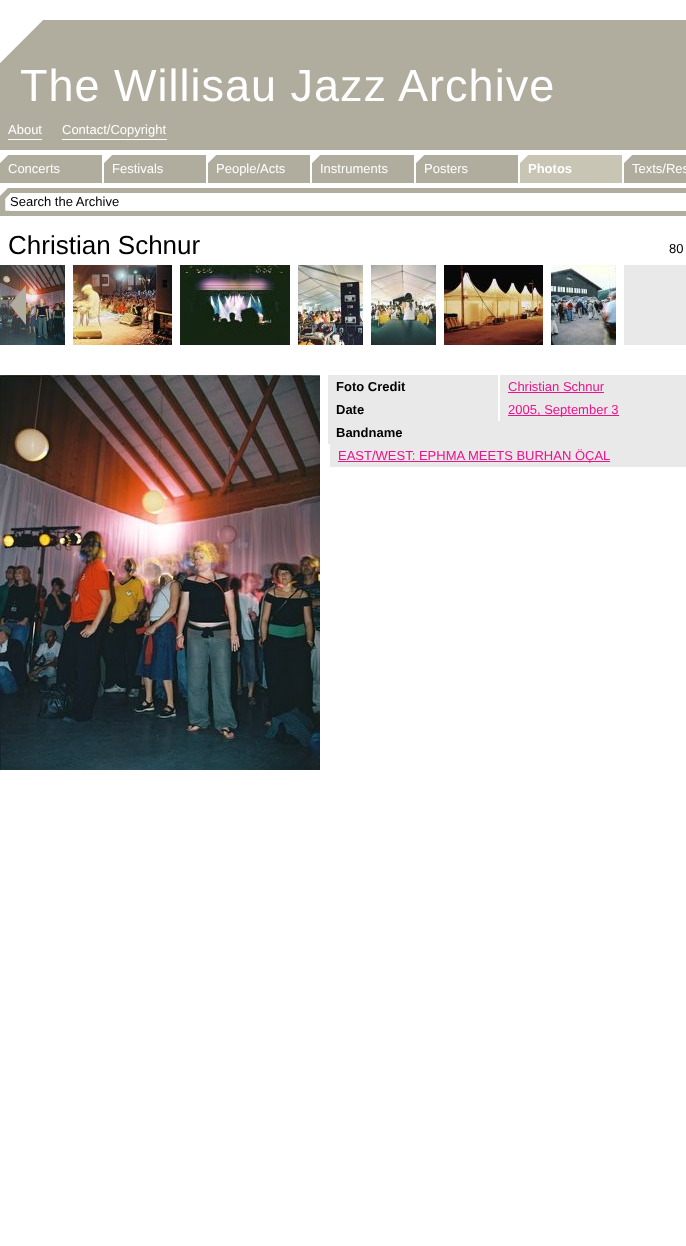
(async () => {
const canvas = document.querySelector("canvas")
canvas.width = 686
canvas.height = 1246
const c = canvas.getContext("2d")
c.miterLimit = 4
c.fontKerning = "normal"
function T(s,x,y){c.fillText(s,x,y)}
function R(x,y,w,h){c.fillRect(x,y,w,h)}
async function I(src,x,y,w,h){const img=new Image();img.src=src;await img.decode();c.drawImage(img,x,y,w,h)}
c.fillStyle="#fff"
R(0,0,686,1246)
c.fillStyle="#b0ad9f"
R(0,20,686,130)
await I("1.png",0,20,43,43)
c.letterSpacing="1px"
c.font="45px Liberation Sans"
c.fillStyle="#fff"
T("The Willisau Jazz Archive",20,101)
c.letterSpacing="0px"
c.font="13px Liberation Sans"
T("About",8,134)
R(8,139,34,1)
T("Contact/Copyright",62,134)
R(62,139,105,1)
c.fillStyle="#b0ad9f"
R(0,155,102,28)
await I("2.png",0,155,8,8)
c.fillStyle="#fff"
T("Concerts",8,173)
c.fillStyle="#b0ad9f"
R(104,155,102,28)
await I("2.png",104,155,8,8)
c.fillStyle="#fff"
T("Festivals",112,173)
c.fillStyle="#b0ad9f"
R(208,155,102,28)
await I("2.png",208,155,8,8)
c.fillStyle="#fff"
T("People/Acts",216,173)
c.fillStyle="#b0ad9f"
R(312,155,102,28)
await I("2.png",312,155,8,8)
c.fillStyle="#fff"
T("Instruments",320,173)
c.fillStyle="#b0ad9f"
R(416,155,102,28)
await I("2.png",416,155,8,8)
c.fillStyle="#fff"
T("Posters",424,173)
c.fillStyle="#c8c5b5"
R(520,155,102,28)
await I("3.png",520,155,8,8)
c.font="bold 13px Liberation Sans"
c.fillStyle="#fff"
T("Photos",528,173)
c.fillStyle="#b0ad9f"
R(624,155,62,28)
await I("2.png",624,155,8,8)
c.font="13px Liberation Sans"
c.fillStyle="#fff"
T("Texts/Res",632,173)
c.fillStyle="#b0ad9f"
R(0,188,686,28)
await I("4.png",0,188,10,23)
c.fillStyle="#fff"
R(10,193,676,18)
c.fillStyle="#000"
T("Search the Archive",10,206)
c.font="26px Liberation Sans"
T("Christian Schnur",8,254)
c.font="13px Liberation Sans"
T("80",669,253)
c.fillStyle="#e9e9ea"
R(624,265,62,80)
await I("5.png",0,265,65,80)
await I("6.png",73,265,99,80)
await I("7.png",180,265,110,80)
await I("8.png",298,265,65,80)
await I("9.png",371,265,65,80)
await I("10.png",444,265,99,80)
await I("11.png",551,265,65,80)
c.fillStyle="#bfbfbf33"
R(0,265,36,80)
await I("12.png",10,285,16,40)
await I("13.png",0,375,320,395)
c.fillStyle="#e9e9ea"
R(328,375,358,92)
c.font="bold 13px Liberation Sans"
c.fillStyle="#000"
T("Foto Credit",336,391)
c.fillStyle="#fff"
R(498,375,2,46)
c.font="13px Liberation Sans"
c.fillStyle="#ea148c"
T("Christian Schnur",508,391)
R(508,392,96,1)
c.font="bold 13px Liberation Sans"
c.fillStyle="#000"
T("Date",336,414)
c.fillStyle="#ea148c"
R(508,415,111,1)
c.font="13px Liberation Sans"
T("2005, September 3",508,414)
c.font="bold 13px Liberation Sans"
c.fillStyle="#000"
T("Bandname",336,437)
c.fillStyle="#fff"
R(328,444,2,23)
c.fillStyle="#ea148c"
R(338,461,272,1)
c.font="13px Liberation Sans"
T("EAST/WEST: EPHMA MEETS BURHAN ÖÇAL",338,460)
})()
